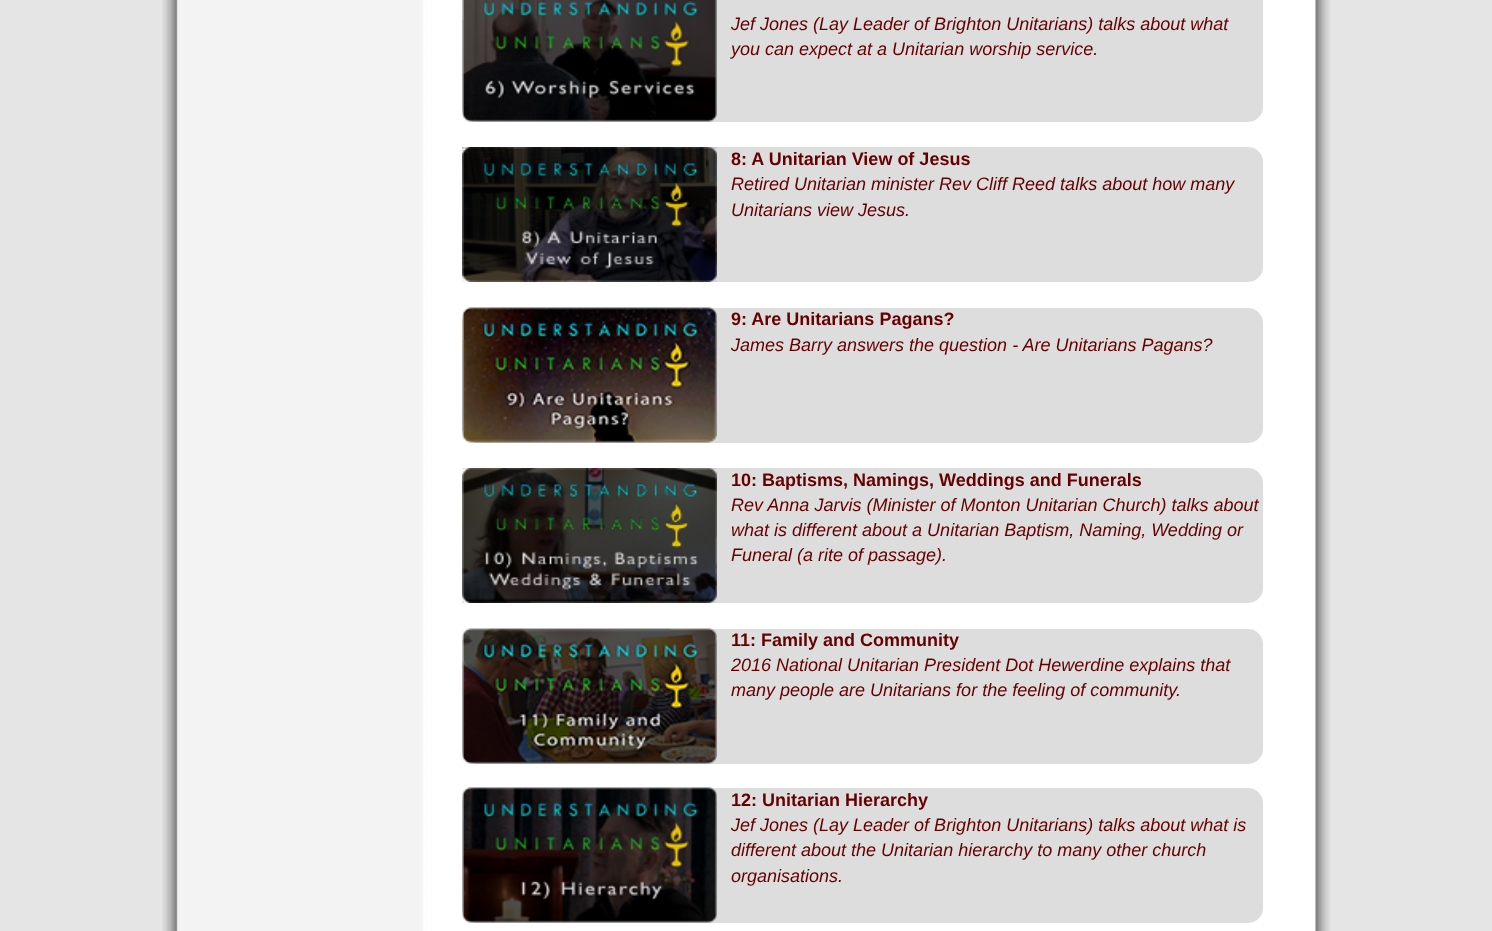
(async () => {
const canvas = document.querySelector("canvas")
canvas.width = 1492
canvas.height = 931
const c = canvas.getContext("2d")
c.miterLimit = 4
c.fontKerning = "normal"
function T(s,x,y){c.fillText(s,x,y)}
function R(x,y,w,h){c.fillRect(x,y,w,h)}
function Q(x,y,w,h,r){c.beginPath();c.roundRect(x,y,w,h,r);c.fill()}
async function I(src,x,y,w,h){const img=new Image();img.src=src;await img.decode();c.drawImage(img,x,y,w,h)}
c.fillStyle="#e5e5e5"
R(0,0,1492,931)
await I("1.png",162,0,1169,931)
c.fillStyle="#ddd"
Q(462,-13,801,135,15)
await I("2.png",462,0,255,122)
c.font="italic 18px Liberation Sans"
c.fillStyle="#600"
T("Jef Jones (Lay Leader of Brighton Unitarians) talks about what",731,30)
T("you can expect at a Unitarian worship service.",731,55)
c.fillStyle="#ddd"
Q(462,147,801,135,15)
await I("3.png",462,147,255,135)
c.font="bold 18px Liberation Sans"
c.fillStyle="#600"
T("8: A Unitarian View of Jesus",731,165)
c.font="italic 18px Liberation Sans"
T("Retired Unitarian minister Rev Cliff Reed talks about how many",731,190)
T("Unitarians view Jesus.",731,216)
c.fillStyle="#ddd"
Q(462,308,801,135,15)
await I("4.png",462,307,255,136)
c.font="bold 18px Liberation Sans"
c.fillStyle="#600"
T("9: Are Unitarians Pagans?",731,325)
c.font="italic 18px Liberation Sans"
T("James Barry answers the question - Are Unitarians Pagans?",731,351)
c.fillStyle="#ddd"
Q(462,468,801,135,15)
await I("5.png",462,468,255,135)
c.font="bold 18px Liberation Sans"
c.fillStyle="#600"
T("10: Baptisms, Namings, Weddings and Funerals",731,486)
c.font="italic 18px Liberation Sans"
T("Rev Anna Jarvis (Minister of Monton Unitarian Church) talks about",731,511)
T("what is different about a Unitarian Baptism, Naming, Wedding or",731,536)
T("Funeral (a rite of passage).",731,561)
c.fillStyle="#ddd"
Q(462,629,801,135,15)
await I("6.png",462,628,255,136)
c.font="bold 18px Liberation Sans"
c.fillStyle="#600"
T("11: Family and Community",731,646)
c.font="italic 18px Liberation Sans"
T("2016 National Unitarian President Dot Hewerdine explains that",731,671)
T("many people are Unitarians for the feeling of community.",731,696)
c.fillStyle="#ddd"
Q(462,788,801,135,15)
await I("7.png",462,787,255,136)
c.font="bold 18px Liberation Sans"
c.fillStyle="#600"
T("12: Unitarian Hierarchy",731,806)
c.font="italic 18px Liberation Sans"
T("Jef Jones (Lay Leader of Brighton Unitarians) talks about what is",731,831)
T("different about the Unitarian hierarchy to many other church",731,856)
T("organisations.",731,882)
})()
